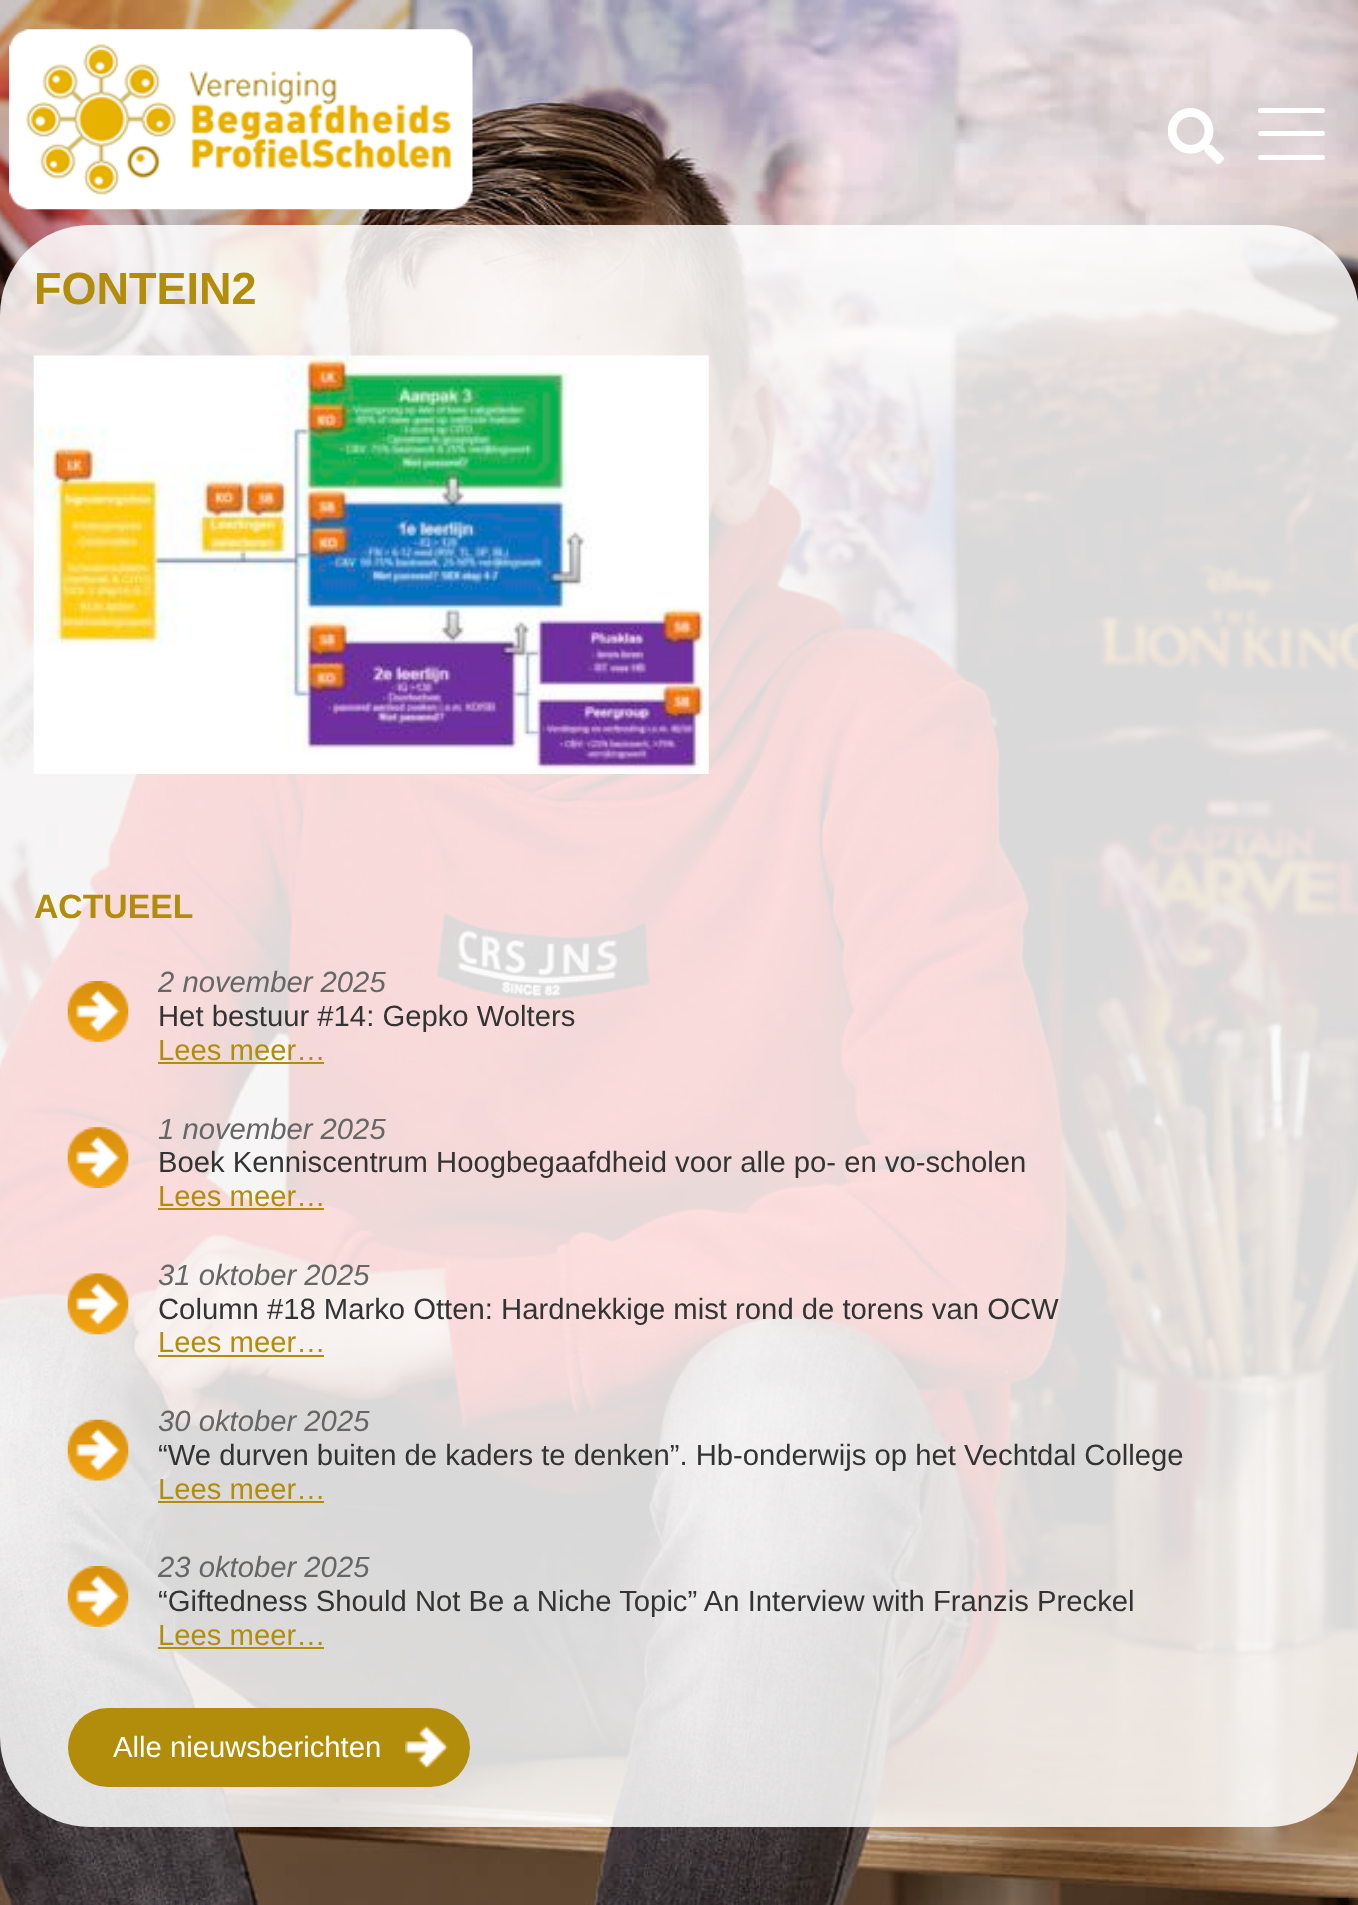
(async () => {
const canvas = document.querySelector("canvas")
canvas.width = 1358
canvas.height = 1905
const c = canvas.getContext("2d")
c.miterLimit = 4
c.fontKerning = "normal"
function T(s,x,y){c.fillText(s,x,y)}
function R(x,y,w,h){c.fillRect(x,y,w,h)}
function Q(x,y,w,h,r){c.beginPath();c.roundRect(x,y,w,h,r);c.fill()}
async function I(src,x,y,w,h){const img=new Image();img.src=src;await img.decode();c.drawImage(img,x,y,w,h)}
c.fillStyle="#fff"
R(0,0,1358,1905)
c.fillStyle="#808080"
c.filter="blur(5.5px)"
c.beginPath()
c.roundRect(1202,1739,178,135,5)
c.fill()
c.filter="none"
await I("1.png",0,0,1358,1905)
await I("2.png",9,29,464,181)
await I("3.png",1168,108,56,56)
c.fillStyle="#fff"
Q(1258,108,67,5,2.5)
Q(1258,131,67,5,2.5)
Q(1258,155,67,5,2.5)
c.fillStyle="#ffffffd9"
Q(0,225,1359,1602,90)
c.font="bold 45px Liberation Sans"
c.fillStyle="#b28d0b"
T("FONTEIN2",34,304)
await I("4.png",33,355,676,419)
c.font="bold 33.75px Liberation Sans"
T("ACTUEEL",34,918)
await I("5.png",67,981,62,61)
c.font="italic 29.25px Liberation Sans"
c.fillStyle="#666"
T("2 november 2025",158,992)
c.font="29.25px Liberation Sans"
c.fillStyle="#333"
T("Het bestuur #14: Gepko Wolters",158,1026)
c.fillStyle="#b28d0b"
T("Lees meer…",158,1060)
R(158,1062,166,2)
await I("6.png",67,1127,62,61)
c.font="italic 29.25px Liberation Sans"
c.fillStyle="#666"
T("1 november 2025",158,1139)
c.font="29.25px Liberation Sans"
c.fillStyle="#333"
T("Boek Kenniscentrum Hoogbegaafdheid voor alle po- en vo-scholen",158,1172)
c.fillStyle="#b28d0b"
T("Lees meer…",158,1206)
R(158,1208,166,2)
await I("7.png",67,1273,62,62)
c.font="italic 29.25px Liberation Sans"
c.fillStyle="#666"
T("31 oktober 2025",158,1285)
c.font="29.25px Liberation Sans"
c.fillStyle="#333"
T("Column #18 Marko Otten: Hardnekkige mist rond de torens van OCW",158,1319)
c.fillStyle="#b28d0b"
T("Lees meer…",158,1352)
R(158,1355,166,2)
await I("8.png",67,1419,62,62)
c.font="italic 29.25px Liberation Sans"
c.fillStyle="#666"
T("30 oktober 2025",158,1431)
c.font="29.25px Liberation Sans"
c.fillStyle="#333"
T("“We durven buiten de kaders te denken”. Hb-onderwijs op het Vechtdal College",158,1465)
c.fillStyle="#b28d0b"
T("Lees meer…",158,1499)
R(158,1501,166,2)
await I("9.png",67,1566,62,61)
c.font="italic 29.25px Liberation Sans"
c.fillStyle="#666"
T("23 oktober 2025",158,1577)
c.font="29.25px Liberation Sans"
c.fillStyle="#333"
T("“Giftedness Should Not Be a Niche Topic” An Interview with Franzis Preckel",158,1611)
c.fillStyle="#b28d0b"
T("Lees meer…",158,1645)
R(158,1647,166,2)
Q(68,1708,402,79,39.5)
c.fillStyle="#fff"
T("Alle nieuwsberichten",113,1757)
await I("10.png",405,1725,44,44)
})()
